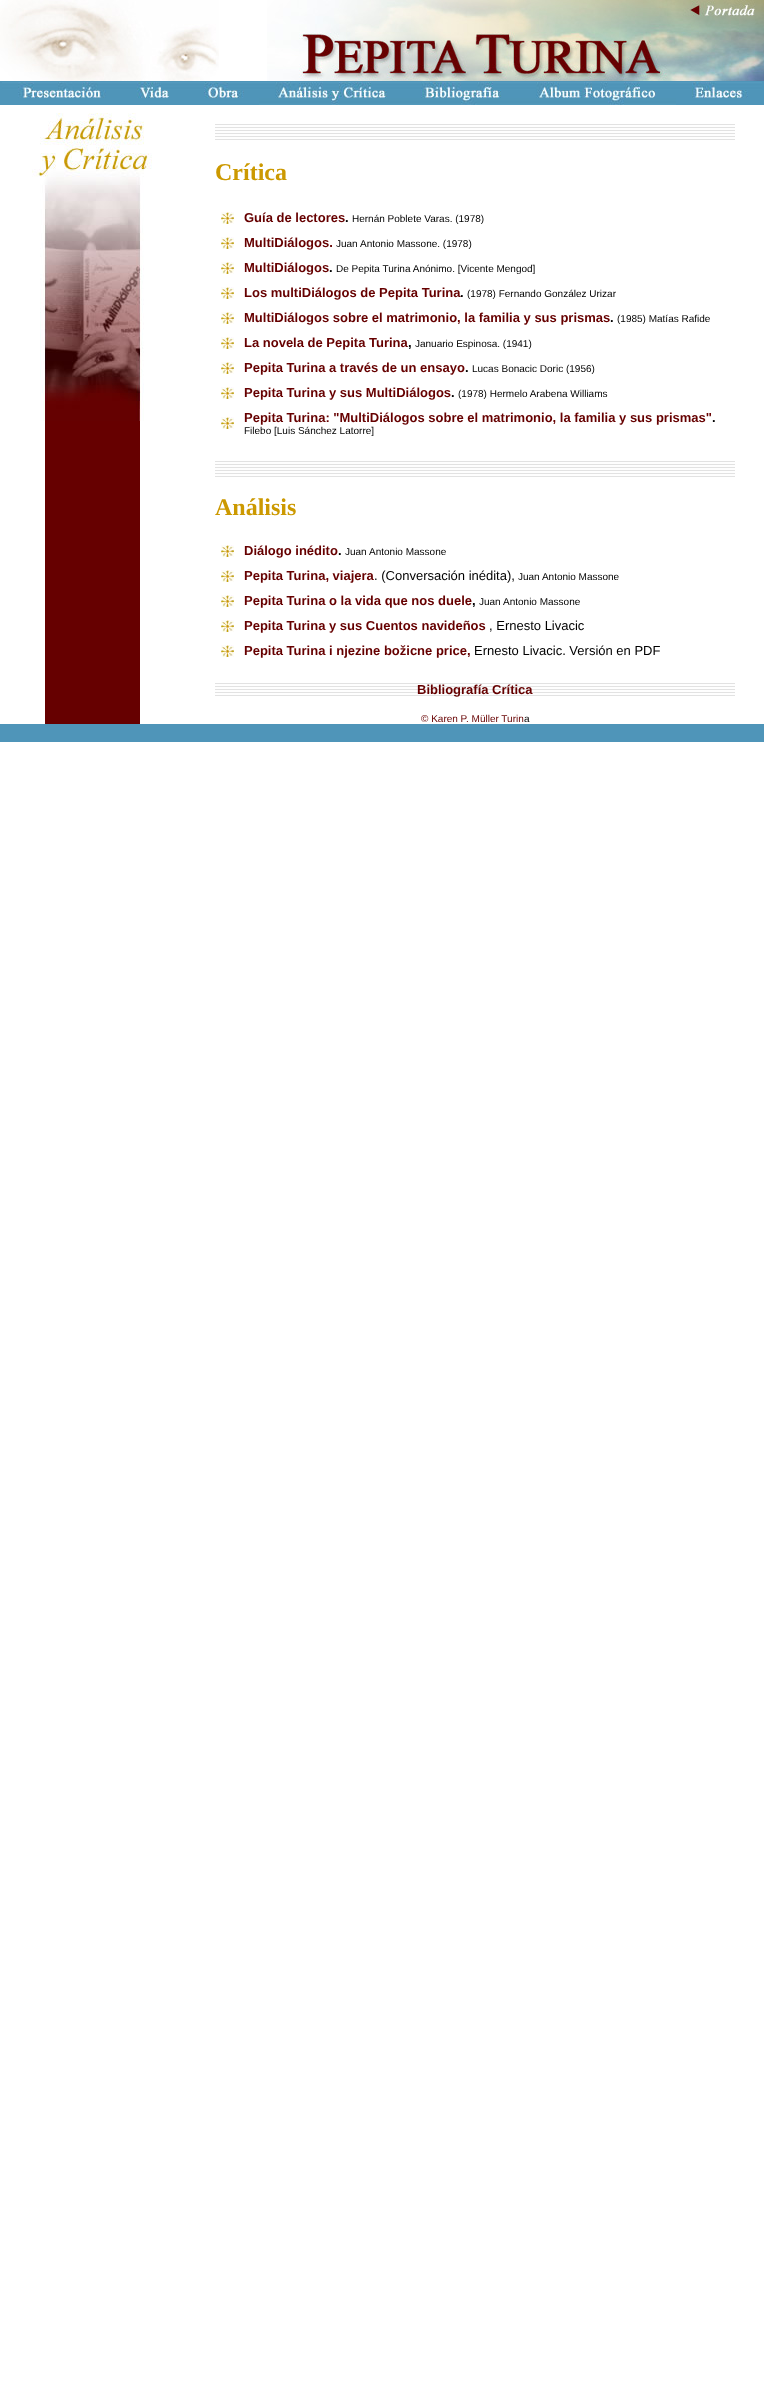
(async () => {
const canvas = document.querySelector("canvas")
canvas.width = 764
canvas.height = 2396
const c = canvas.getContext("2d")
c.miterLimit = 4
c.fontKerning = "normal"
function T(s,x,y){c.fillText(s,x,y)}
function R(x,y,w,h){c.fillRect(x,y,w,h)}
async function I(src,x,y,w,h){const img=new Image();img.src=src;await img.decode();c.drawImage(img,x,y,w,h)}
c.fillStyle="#fff"
R(0,0,764,2396)
await I("1.png",0,0,219,81)
await I("2.png",267,0,497,81)
c.fillStyle="#4f95b9"
R(0,81,764,24)
await I("3.png",2,82,119,16)
await I("4.png",121,82,67,16)
await I("5.png",188,82,71,16)
await I("6.png",259,82,146,23)
await I("7.png",405,82,115,23)
await I("8.png",520,82,156,23)
await I("9.png",676,82,86,16)
c.fillStyle="#600"
R(45,421,95,303)
await I("10.png",32,105,120,316)
await I("11.png",215,124,520,16)
c.font="bold 24px Liberation Serif"
c.fillStyle="#c90"
T("Crítica",215,180)
await I("12.png",221,212,13,12)
c.font="bold 13px Liberation Sans"
c.fillStyle="#600"
T("Guía de lectores",244,222)
c.fillStyle="#000"
T(".",345,222)
c.font="10px Liberation Sans"
T("Hernán Poblete Varas. (1978)",352,222)
await I("12.png",221,237,13,12)
c.font="bold 13px Liberation Sans"
c.fillStyle="#600"
T("MultiDiálogos.",244,247)
c.font="10px Liberation Sans"
c.fillStyle="#000"
T("Juan",336,247)
T("Antonio Massone. (1978)",360,247)
await I("12.png",221,262,13,12)
c.font="bold 13px Liberation Sans"
c.fillStyle="#600"
T("MultiDiálogos",244,272)
c.fillStyle="#000"
T(".",329,272)
c.font="10px Liberation Sans"
T("De Pepita Turina Anónimo. [Vicente Mengod]",336,272)
await I("12.png",221,287,13,12)
c.font="bold 13px Liberation Sans"
c.fillStyle="#600"
T("Los multiDiálogos de Pepita Turina",244,297)
c.fillStyle="#000"
T(".",460,297)
c.font="10px Liberation Sans"
T("(1978) Fernando González Urizar",467,297)
await I("12.png",221,312,13,12)
c.font="bold 13px Liberation Sans"
c.fillStyle="#600"
T("MultiDiálogos sobre el matrimonio, la familia y sus prismas",244,322)
c.fillStyle="#000"
T(".",610,322)
c.font="10px Liberation Sans"
T("(1985) Matías Rafide",617,322)
await I("12.png",221,337,13,12)
c.font="bold 13px Liberation Sans"
c.fillStyle="#600"
T("La novela de Pepita Turina",244,347)
c.fillStyle="#000"
T(",",408,347)
c.font="10px Liberation Sans"
T("Januario Espinosa. (1941)",415,347)
await I("12.png",221,362,13,12)
c.font="bold 13px Liberation Sans"
c.fillStyle="#600"
T("Pepita Turina a través de un ensayo",244,372)
c.fillStyle="#000"
T(".",465,372)
c.font="10px Liberation Sans"
T("Lucas Bonacic Doric (1956)",472,372)
await I("12.png",221,387,13,12)
c.font="bold 13px Liberation Sans"
c.fillStyle="#600"
T("Pepita Turina y sus MultiDiálogos",244,397)
c.fillStyle="#000"
T(".",451,397)
c.font="10px Liberation Sans"
T("(1978) Hermelo Arabena Williams",458,397)
await I("12.png",221,417,13,12)
c.font="bold 13px Liberation Sans"
c.fillStyle="#600"
T("Pepita Turina: \"MultiDiálogos sobre el matrimonio, la familia y sus prismas\"",244,422)
c.fillStyle="#000"
T(".",712,422)
c.font="10px Liberation Sans"
T("Filebo [Luis Sánchez Latorre]",244,434)
await I("11.png",215,461,520,16)
c.font="bold 24px Liberation Serif"
c.fillStyle="#c90"
T("Análisis",215,515)
await I("12.png",221,545,13,12)
c.font="bold 13px Liberation Sans"
c.fillStyle="#600"
T("Diálogo inédito",244,555)
c.fillStyle="#000"
T(".",338,555)
c.font="10px Liberation Sans"
T("Juan",345,555)
T("Antonio Massone",369,555)
await I("12.png",221,570,13,12)
c.font="bold 13px Liberation Sans"
c.fillStyle="#600"
T("Pepita Turina, viajera",244,580)
c.font="13px Liberation Sans"
c.fillStyle="#000"
T(". (Conversación inédita),",374,580)
c.font="10px Liberation Sans"
T("Juan Antonio Massone",518,580)
await I("12.png",221,595,13,12)
c.font="bold 13px Liberation Sans"
c.fillStyle="#600"
T("Pepita Turina o la vida que nos duele",244,605)
c.fillStyle="#000"
T(",",472,605)
c.font="10px Liberation Sans"
T("Juan",479,605)
T("Antonio Massone",503,605)
await I("12.png",221,620,13,12)
c.font="bold 13px Liberation Sans"
c.fillStyle="#600"
T("Pepita Turina y sus Cuentos navideños",244,630)
c.font="13px Liberation Sans"
c.fillStyle="#000"
T(", Ernesto Livacic",489,630)
await I("12.png",221,645,13,12)
c.font="bold 13px Liberation Sans"
c.fillStyle="#600"
T("Pepita Turina i njezine božicne price,",244,655)
c.font="13px Liberation Sans"
c.fillStyle="#000"
T("Ernesto Livacic. Versión en PDF",474,655)
await I("13.png",215,683,520,13)
c.font="bold 13px Liberation Sans"
c.fillStyle="#600"
T("Bibliografía Crítica",417,694)
c.font="10px Liberation Sans"
T("© Karen P. Müller Turin",421,722)
c.fillStyle="#000"
T("a",524,722)
c.fillStyle="#4f95b9"
R(0,724,764,18)
})()
